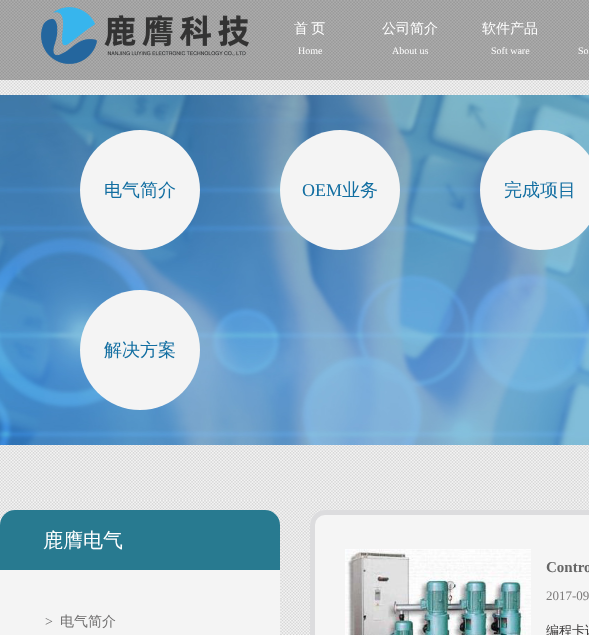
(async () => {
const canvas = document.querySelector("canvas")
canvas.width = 589
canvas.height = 635
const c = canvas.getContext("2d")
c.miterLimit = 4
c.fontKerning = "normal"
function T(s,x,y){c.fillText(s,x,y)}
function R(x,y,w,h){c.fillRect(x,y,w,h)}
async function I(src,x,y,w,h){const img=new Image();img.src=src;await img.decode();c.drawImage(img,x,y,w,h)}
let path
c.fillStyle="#fff"
R(0,0,589,635)
await I("1.png",0,0,589,635)
c.fillStyle="#0000004a"
R(0,0,589,80)
await I("2.png",41,7,208,57)
c.wordSpacing="-1px"
c.font="500 14px WenQuanYi Zen Hei"
c.fillStyle="#fff"
T("首 页",294,33)
c.wordSpacing="0px"
c.font="10px Liberation Serif"
T("Home",298,54)
c.font="500 14px WenQuanYi Zen Hei"
T("公司简介",382,33)
c.font="10px Liberation Serif"
T("About us",392,54)
c.font="500 14px WenQuanYi Zen Hei"
T("软件产品",482,33)
c.font="10px Liberation Serif"
T("Soft ware",491,54)
T("So",578,54)
await I("3.png",0,95,589,350)
c.fillStyle="#f4f4f4"
c.beginPath()
c.arc(140,190,60,0,7)
c.fill()
c.font="500 18px WenQuanYi Zen Hei"
c.fillStyle="#126ea1"
T("电气简介",104,196)
c.fillStyle="#f4f4f4"
c.beginPath()
c.arc(340,190,60,0,7)
c.fill()
c.font="18px Liberation Serif"
c.fillStyle="#126ea1"
T("OEM",302,196)
c.font="500 18px WenQuanYi Zen Hei"
T("业务",342,196)
c.fillStyle="#f4f4f4"
c.beginPath()
c.arc(540,190,60,0,7)
c.fill()
c.fillStyle="#126ea1"
T("完成项目",504,196)
c.fillStyle="#f4f4f4"
c.beginPath()
c.arc(140,350,60,0,7)
c.fill()
c.fillStyle="#126ea1"
T("解决方案",104,356)
c.fillStyle="#f4f4f4"
path = new Path2D("M15 510h250c8.5 0 15 6.5 15 15v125h-280v-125c0-8.5 6.5-15 15-15z")
c.fill(path)
c.fillStyle="#287a90"
c.beginPath()
c.roundRect(0,510,280,60,[15,15,0,0])
c.fill()
c.font="500 20px WenQuanYi Zen Hei"
c.fillStyle="#fff"
T("鹿膺电气",43,547)
c.font="14px Liberation Serif"
c.fillStyle="#706f6f"
T(">",45,626)
c.font="500 14px WenQuanYi Zen Hei"
T("电气简介",60,626)
c.fillStyle="#f5f5f5"
path = new Path2D("M325 510h264v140h-264c-8.5 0-15-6.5-15-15v-110c0-8.5 6.5-15 15-15z")
c.fill(path)
c.beginPath()
c.roundRect(312.5,512.5,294,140,12.5)
c.strokeStyle="#dcdcde"
c.lineWidth=5
c.stroke()
await I("4.png",345,549,186,86)
c.font="bold 15px Liberation Serif"
c.fillStyle="#666"
T("Contro",546,572)
c.font="13px Liberation Serif"
c.fillStyle="#7c7a7a"
T("2017-09",546,600)
c.font="500 13px WenQuanYi Zen Hei"
c.fillStyle="#3c3b3b"
T("编程卡说",546,635)
})()
